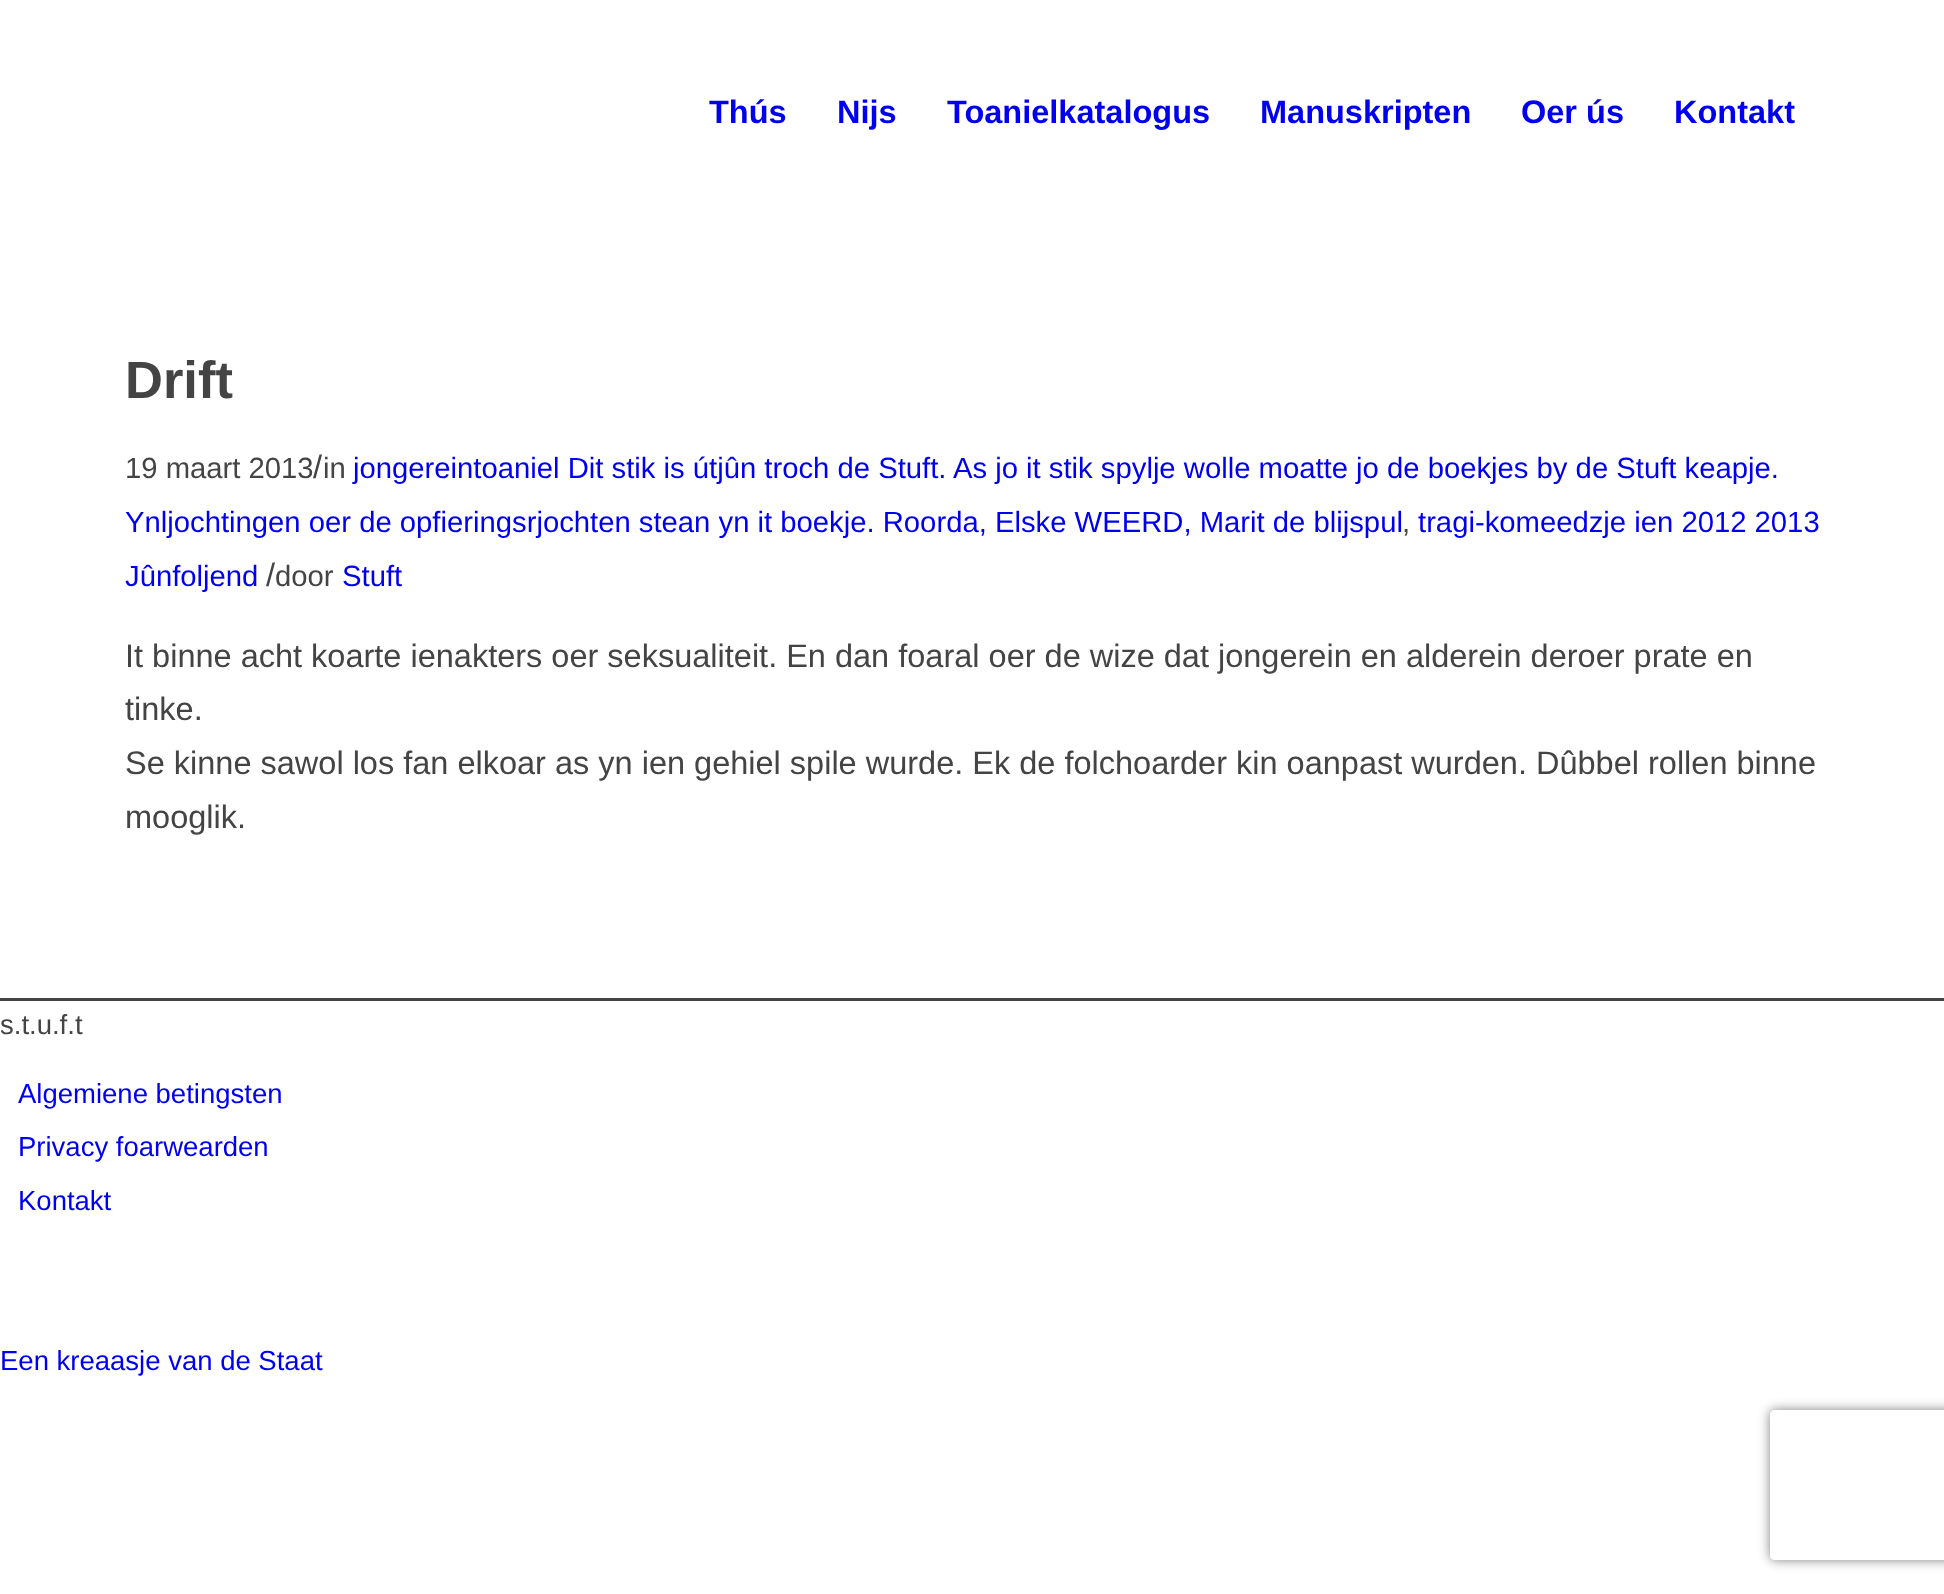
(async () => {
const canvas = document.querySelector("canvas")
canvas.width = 1944
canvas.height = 1594
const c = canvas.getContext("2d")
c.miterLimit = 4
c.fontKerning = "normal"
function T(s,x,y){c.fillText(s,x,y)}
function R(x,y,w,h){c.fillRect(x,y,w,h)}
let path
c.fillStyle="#fff"
R(0,0,1944,1594)
c.font="bold 32.5px Liberation Sans"
c.fillStyle="#00e"
T("Thús",709,123)
T("Nijs",837,123)
T("Toanielkatalogus",947,123)
T("Manuskripten",1260,123)
T("Oer ús",1521,123)
T("Kontakt",1674,123)
c.font="bold 52.5px Liberation Sans"
c.fillStyle="#444"
T("Drift",125,398)
c.font="29.25px Liberation Sans"
T("19 maart 2013",125,478)
c.font="32.5px Liberation Sans"
T("/",313,478)
c.font="29.25px Liberation Sans"
T("in",323,478)
c.fillStyle="#00e"
T("jongereintoaniel Dit stik is útjûn troch de Stuft. As jo it stik spylje wolle moatte jo de boekjes by de Stuft keapje.",353,478)
T("Ynljochtingen oer de opfieringsrjochten stean yn it boekje. Roorda, Elske WEERD, Marit de blijspul",125,532)
c.fillStyle="#444"
T(",",1402,532)
c.fillStyle="#00e"
T("tragi-komeedzje ien 2012 2013",1418,532)
T("Jûnfoljend",125,586)
c.font="32.5px Liberation Sans"
c.fillStyle="#444"
T("/",266,586)
c.font="29.25px Liberation Sans"
T("door",275,586)
c.fillStyle="#00e"
T("Stuft",342,586)
c.font="32.5px Liberation Sans"
c.fillStyle="#444"
T("It binne acht koarte ienakters oer seksualiteit. En dan foaral oer de wize dat jongerein en alderein deroer prate en",125,667)
T("tinke.",125,720)
T("Se kinne sawol los fan elkoar as yn ien gehiel spile wurde. Ek de folchoarder kin oanpast wurden. Dûbbel rollen binne",125,774)
T("mooglik.",125,828)
R(0,998,1944,3)
c.font="27.5px Liberation Sans"
T("s.t.u.f.t",0,1034)
c.fillStyle="#00e"
T("Algemiene betingsten",18,1103)
T("Privacy foarwearden",18,1156)
T("Kontakt",18,1210)
T("Een kreaasje van de Staat",0,1370)
c.save()
path = new Path2D("M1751 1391h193v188h-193zm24 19h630c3 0 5 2 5 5v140c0 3-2 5-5 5h-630c-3 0-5-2-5-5v-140c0-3 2-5 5-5z")
c.clip(path,"evenodd")
c.fillStyle="#808080"
c.filter="blur(6px)"
c.beginPath()
c.roundRect(1770,1410,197,150,5)
c.fill()
c.filter="none"
c.restore()
})()
